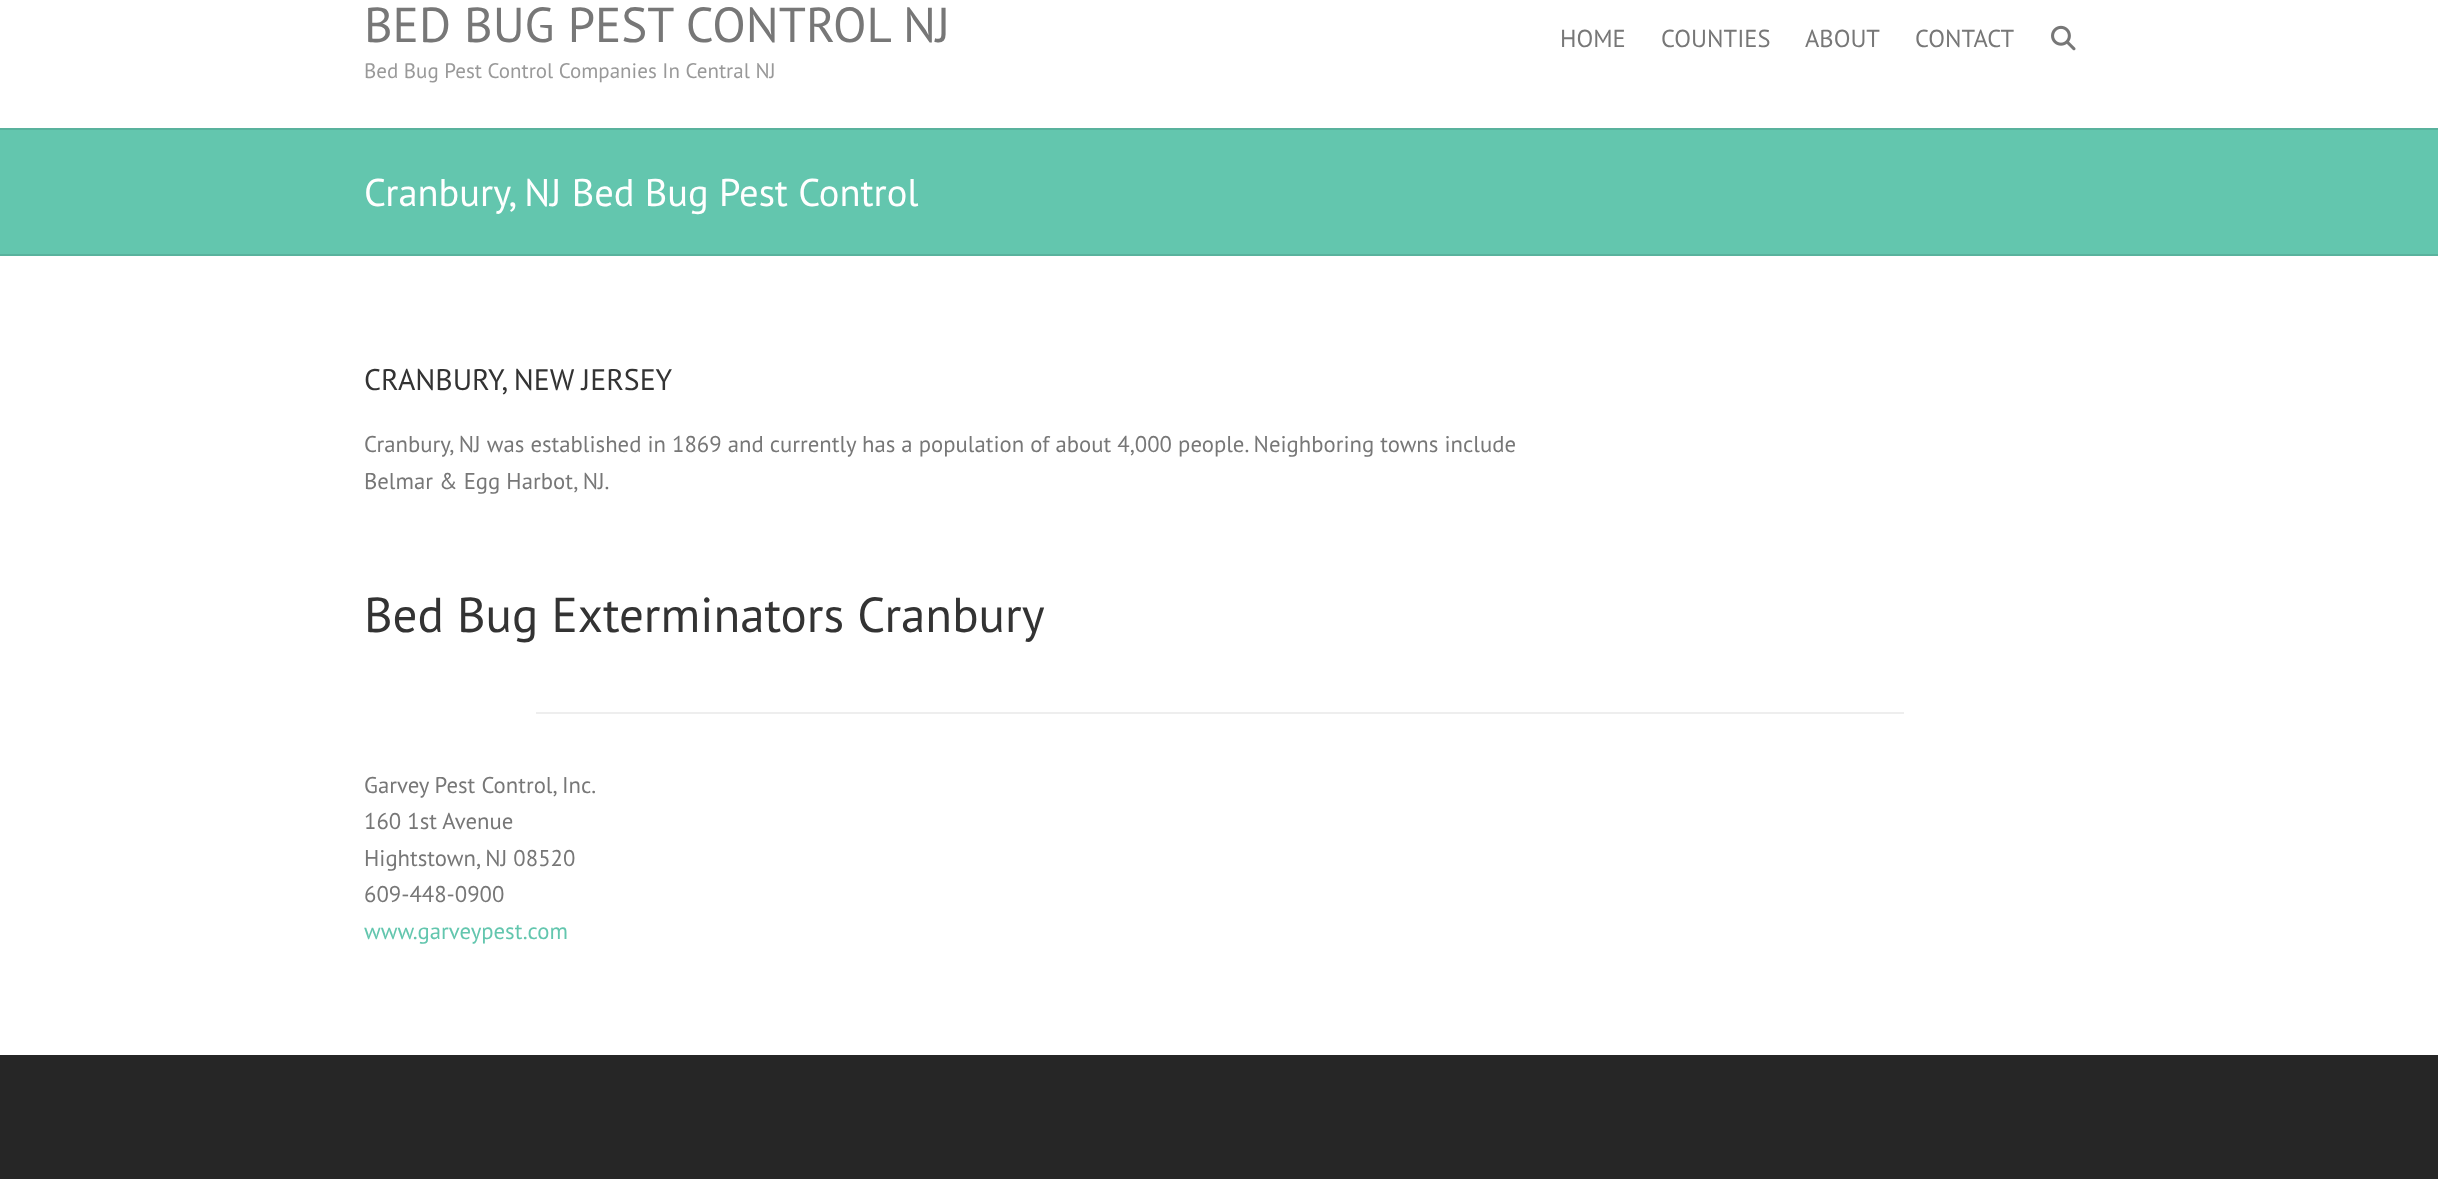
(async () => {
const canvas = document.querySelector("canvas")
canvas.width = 2438
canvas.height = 1179
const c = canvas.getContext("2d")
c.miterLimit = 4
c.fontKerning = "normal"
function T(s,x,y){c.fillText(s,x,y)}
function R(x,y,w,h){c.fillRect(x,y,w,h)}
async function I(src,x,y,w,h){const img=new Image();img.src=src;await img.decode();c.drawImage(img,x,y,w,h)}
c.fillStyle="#fff"
R(0,0,2438,1179)
c.font="49px PT Sans"
c.fillStyle="#777"
T("BED BUG PEST CONTROL NJ",364,42)
c.font="21px PT Sans"
c.fillStyle="#999"
T("Bed Bug Pest Control Companies In Central NJ",364,78)
c.font="24.5px PT Sans"
c.fillStyle="#777"
T("HOME",1560,47)
T("COUNTIES",1661,47)
T("ABOUT",1805,47)
T("CONTACT",1915,47)
await I("1.png",2051,25,25,26)
c.fillStyle="#63c6ae"
R(0,130,2438,124)
c.fillStyle="#59b29d"
R(0,128,2438,2)
R(0,254,2438,2)
c.font="38.5px PT Sans"
c.fillStyle="#fff"
T("Cranbury, NJ Bed Bug Pest Control",364,206)
c.font="29.75px PT Sans"
c.fillStyle="#333"
T("CRANBURY, NEW JERSEY",364,390)
c.font="22.75px PT Sans"
c.fillStyle="#777"
T("Cranbury, NJ was established in 1869 and currently has a population of about 4,000 people. Neighboring towns include",364,452)
T("Belmar & Egg Harbot, NJ.",364,489)
c.font="49px PT Sans"
c.fillStyle="#333"
T("Bed Bug Exterminators Cranbury",364,632)
c.fillStyle="#eee"
R(536,712,1368,2)
c.font="22.75px PT Sans"
c.fillStyle="#777"
T("Garvey Pest Control, Inc.",364,793)
T("160 1st Avenue",364,829)
T("Hightstown, NJ 08520",364,866)
T("609-448-0900",364,902)
c.fillStyle="#63c6ae"
T("www.garveypest.com",364,939)
c.fillStyle="#262626"
R(0,1055,2438,124)
})()
